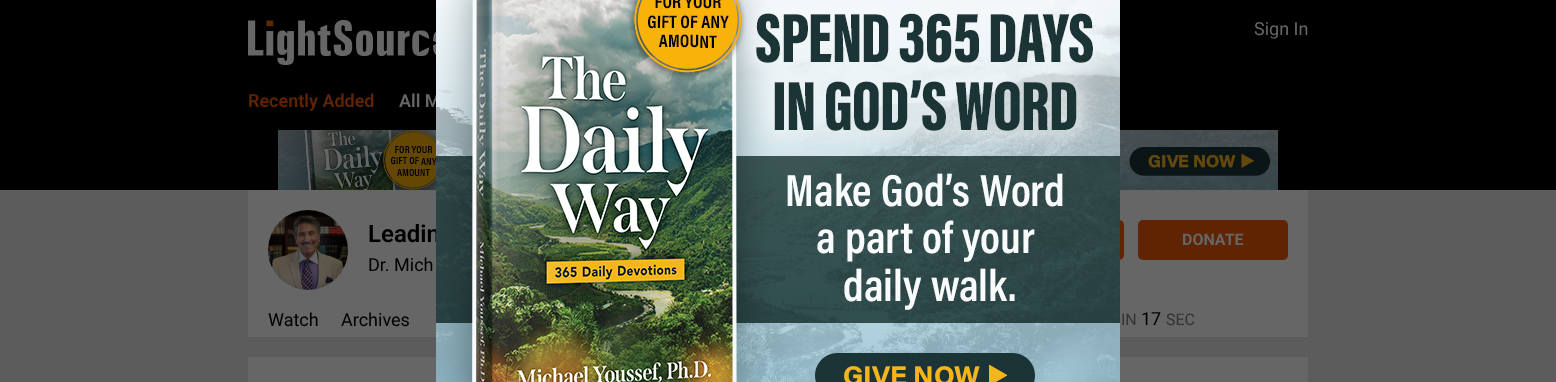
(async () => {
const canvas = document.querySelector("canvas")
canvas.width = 1556
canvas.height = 382
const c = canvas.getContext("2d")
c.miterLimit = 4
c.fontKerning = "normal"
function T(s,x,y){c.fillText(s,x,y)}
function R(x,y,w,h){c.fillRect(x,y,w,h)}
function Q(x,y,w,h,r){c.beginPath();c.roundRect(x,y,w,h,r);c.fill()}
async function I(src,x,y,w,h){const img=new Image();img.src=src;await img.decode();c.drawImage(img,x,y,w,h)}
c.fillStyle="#5c5c5c"
R(0,0,1556,382)
c.fillStyle="#000"
R(0,0,1556,190)
c.font="600 18px Roboto"
c.fillStyle="#666"
T("All M",399,107)
await I("3.png",278,130,1000,60)
R(248,190,1060,147)
c.font="600 24px Roboto"
c.fillStyle="#000"
T("Leadin",368,242)
c.fillStyle="#612402"
Q(974,220,150,40,5)
await I("1.png",436,0,684,382)
await I("2.png",248,20,188,45)
c.font="18px Roboto"
c.fillStyle="#666"
T("Sign In",1254,35)
c.font="600 18px Roboto"
c.fillStyle="#612402"
T("Recently Added",248,107)
await I("4.png",268,210,80,80)
c.font="18px Roboto"
c.fillStyle="#000"
T("Dr. Mich",368,271)
c.fillStyle="#612402"
Q(1138,220,150,40,5)
c.font="bold 16px Roboto"
c.fillStyle="#666"
T("DONATE",1182,245)
c.font="18px Roboto"
c.fillStyle="#000"
T("Watch",268,326)
T("Archives",341,326)
c.font="16px Roboto"
c.fillStyle="#333"
T("IN",1121,325)
c.font="18px Roboto"
c.fillStyle="#000"
T("17",1141,325)
c.font="16px Roboto"
c.fillStyle="#333"
T("SEC",1166,325)
c.fillStyle="#666"
R(248,357,188,25)
R(1120,357,188,25)
})()
